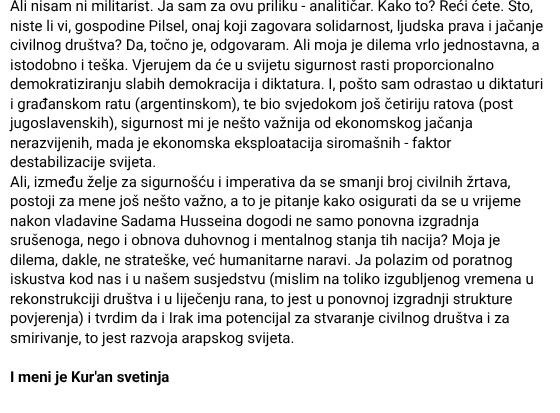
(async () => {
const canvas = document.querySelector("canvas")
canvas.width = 560
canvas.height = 413
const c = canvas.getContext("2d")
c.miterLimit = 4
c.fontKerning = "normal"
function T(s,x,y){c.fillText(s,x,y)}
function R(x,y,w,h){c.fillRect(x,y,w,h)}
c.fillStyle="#fff"
R(0,0,560,413)
c.font="15px Roboto"
c.fillStyle="#000"
T("Ali nisam ni militarist. Ja sam za ovu priliku - analitičar. Kako to? Reći ćete. Što,",10,11)
T("niste li vi, gospodine Pilsel, onaj koji zagovara solidarnost, ljudska prava i jačanje",10,31)
T("civilnog društva? Da, točno je, odgovaram. Ali moja je dilema vrlo jednostavna, a",10,50)
T("istodobno i teška. Vjerujem da će u svijetu sigurnost rasti proporcionalno",10,70)
T("demokratiziranju slabih demokracija i diktatura. I, pošto sam odrastao u diktaturi",10,89)
T("i građanskom ratu (argentinskom), te bio svjedokom još četiriju ratova (post",10,109)
T("jugoslavenskih), sigurnost mi je nešto važnija od ekonomskog jačanja",10,128)
T("nerazvijenih, mada je ekonomska eksploatacija siromašnih - faktor",10,148)
T("destabilizacije svijeta.",10,167)
T("Ali, između želje za sigurnošću i imperativa da se smanji broj civilnih žrtava,",10,187)
T("postoji za mene još nešto važno, a to je pitanje kako osigurati da se u vrijeme",10,206)
T("nakon vladavine Sadama Husseina dogodi ne samo ponovna izgradnja",10,226)
T("srušenoga, nego i obnova duhovnog i mentalnog stanja tih nacija? Moja je",10,245)
T("dilema, dakle, ne strateške, već humanitarne naravi. Ja polazim od poratnog",10,265)
T("iskustva kod nas i u našem susjedstvu (mislim na toliko izgubljenog vremena u",10,284)
T("rekonstrukciji društva i u liječenju rana, to jest u ponovnoj izgradnji strukture",10,304)
T("povjerenja) i tvrdim da i Irak ima potencijal za stvaranje civilnog društva i za",10,323)
T("smirivanje, to jest razvoja arapskog svijeta.",10,343)
c.font="bold 15px Roboto"
T("I meni je Kur'an svetinja",10,382)
})()
